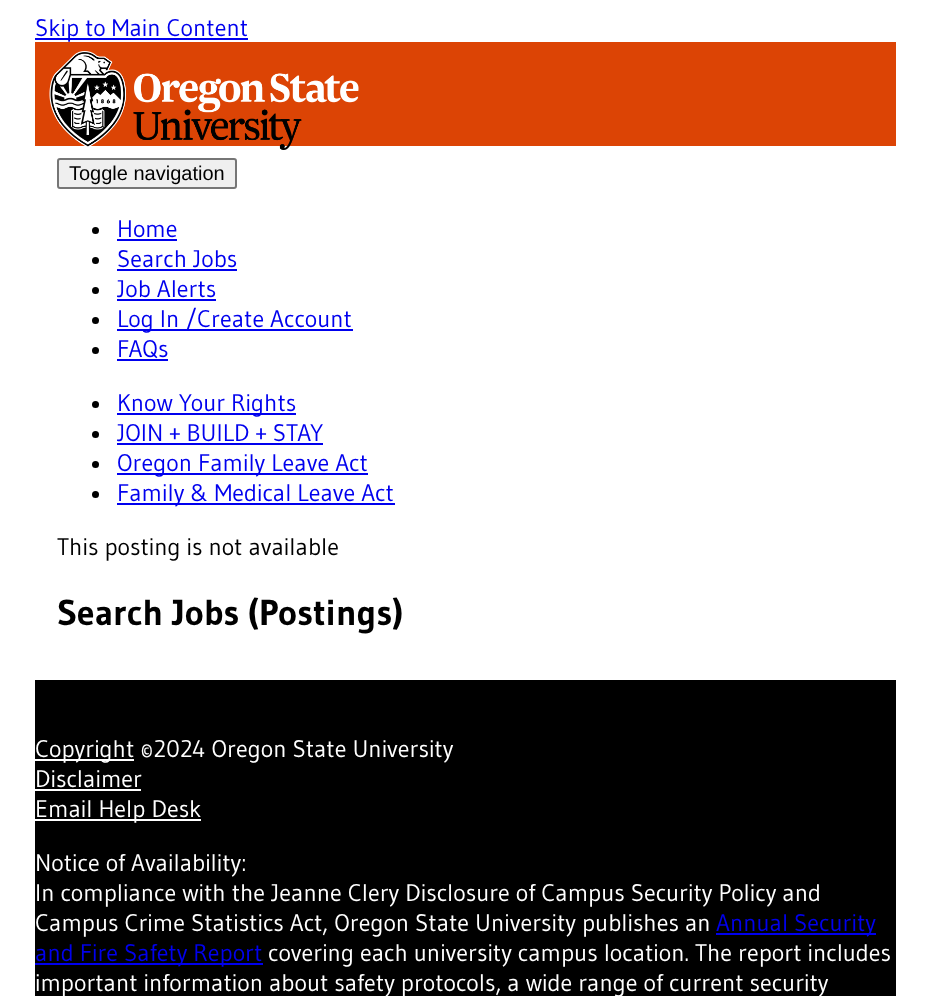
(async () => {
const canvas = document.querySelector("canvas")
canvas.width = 930
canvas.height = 996
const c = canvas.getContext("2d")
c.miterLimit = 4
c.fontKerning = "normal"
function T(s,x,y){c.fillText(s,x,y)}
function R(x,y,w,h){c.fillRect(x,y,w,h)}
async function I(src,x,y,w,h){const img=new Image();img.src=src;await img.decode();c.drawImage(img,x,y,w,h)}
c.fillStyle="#fff"
R(0,0,930,996)
c.fillStyle="#00e"
R(35,38,213,2)
c.font="24px Gudea"
T("Skip to Main Content",35,36)
c.fillStyle="#dc4405"
R(35,42,861,104)
await I("1.png",49,51,310,99)
c.fillStyle="#efefef"
c.beginPath()
c.roundRect(58,159,178,29,2)
c.fill()
c.strokeStyle="#767676"
c.lineWidth=2
c.stroke()
c.font="20px Liberation Sans"
c.fillStyle="#000"
T("Toggle navigation",69,180)
c.beginPath()
c.arc(95.5,230.5,3.5,0,7)
c.fill()
c.font="24px Gudea"
c.fillStyle="#00e"
T("Home",117,237)
R(117,239,60,2)
c.fillStyle="#000"
c.beginPath()
c.arc(95.5,260.5,3.5,0,7)
c.fill()
c.fillStyle="#00e"
T("Search Jobs",117,267)
R(117,269,120,2)
c.fillStyle="#000"
c.beginPath()
c.arc(95.5,290.5,3.5,0,7)
c.fill()
c.fillStyle="#00e"
T("Job Alerts",117,297)
R(117,299,99,2)
c.fillStyle="#000"
c.beginPath()
c.arc(95.5,320.5,3.5,0,7)
c.fill()
c.fillStyle="#00e"
R(117,329,236,2)
T("Log In /Create Account",117,327)
c.fillStyle="#000"
c.beginPath()
c.arc(95.5,350.5,3.5,0,7)
c.fill()
c.fillStyle="#00e"
T("FAQs",117,357)
R(117,359,51,2)
c.fillStyle="#000"
c.beginPath()
c.arc(95.5,404.5,3.5,0,7)
c.fill()
c.fillStyle="#00e"
R(117,413,179,2)
T("Know Your Rights",117,411)
c.fillStyle="#000"
c.beginPath()
c.arc(95.5,434.5,3.5,0,7)
c.fill()
c.fillStyle="#00e"
T("JOIN + BUILD + STAY",117,441)
R(117,443,206,2)
c.fillStyle="#000"
c.beginPath()
c.arc(95.5,464.5,3.5,0,7)
c.fill()
c.fillStyle="#00e"
R(117,473,251,2)
T("Oregon Family Leave Act",117,471)
c.fillStyle="#000"
c.beginPath()
c.arc(95.5,494.5,3.5,0,7)
c.fill()
c.fillStyle="#00e"
R(117,503,278,2)
T("Family & Medical Leave Act",117,501)
c.fillStyle="#000"
T("This posting is not available",57,555)
c.font="bold 36px Gudea"
T("Search Jobs (Postings)",57,625)
R(35,680,861,316)
c.fillStyle="#fff"
R(35,759,99,2)
c.font="24px Gudea"
T("Copyright ©2024 Oregon State University",35,757)
T("Disclaimer",35,787)
R(35,789,106,2)
R(35,819,166,2)
T("Email Help Desk",35,817)
T("Notice of Availability:",35,871)
T("In compliance with the Jeanne Clery Disclosure of Campus Security Policy and",35,901)
T("Campus Crime Statistics Act, Oregon State University publishes an",35,931)
c.fillStyle="#00e"
R(716,933,160,2)
T("Annual Security",716,931)
R(35,963,228,2)
T("and Fire Safety Report",35,961)
c.fillStyle="#fff"
T("covering each university campus location. The report includes",268,961)
T("important information about safety protocols, a wide range of current security",35,991)
})()
